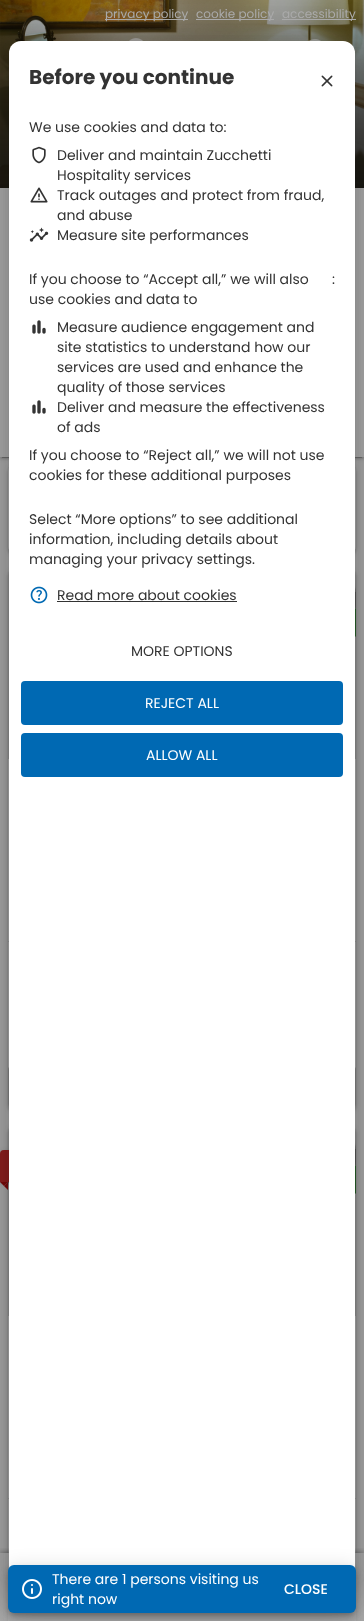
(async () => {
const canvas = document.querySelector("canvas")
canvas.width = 364
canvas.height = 1621
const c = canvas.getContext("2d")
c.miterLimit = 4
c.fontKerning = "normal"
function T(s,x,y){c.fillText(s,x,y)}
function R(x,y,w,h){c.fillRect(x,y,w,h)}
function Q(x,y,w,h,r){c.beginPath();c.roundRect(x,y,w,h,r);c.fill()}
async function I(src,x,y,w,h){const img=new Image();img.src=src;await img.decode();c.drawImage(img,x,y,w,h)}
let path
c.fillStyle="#aaa"
R(0,0,364,1621)
await I("1.png",0,0,364,188)
await I("2.png",129,38,14,3)
await I("3.png",309,39,12,2)
c.fillStyle="#adadad"
R(105,19,83,1)
c.font="12px Poppins"
T("privacy policy",105,18)
R(196,19,78,1)
T("cookie policy",196,18)
R(282,19,74,1)
T("accessibility",282,18)
c.fillStyle="#0000001f"
c.filter="blur(2.5px)"
c.beginPath()
c.roundRect(8,466,348,88,6)
c.fill()
c.filter="none"
c.fillStyle="#00000024"
c.filter="blur(1px)"
c.beginPath()
c.roundRect(8,467,348,88,6)
c.fill()
c.filter="none"
c.fillStyle="#adadad"
Q(8,465,348,88,6)
c.fillStyle="#0000001f"
c.filter="blur(2.5px)"
c.beginPath()
c.rect(0,189,364,269)
c.fill()
c.filter="none"
c.fillStyle="#00000024"
c.filter="blur(1px)"
c.beginPath()
c.rect(0,190,364,269)
c.fill()
c.filter="none"
c.fillStyle="#00000033"
c.filter="blur(0.5px)"
c.beginPath()
c.rect(2,193,360,265)
c.fill()
c.filter="none"
c.fillStyle="#adadad"
R(0,188,364,269)
c.fillStyle="#0000001f"
c.filter="blur(2.5px)"
c.beginPath()
c.roundRect(8,570,348,541,6)
c.fill()
c.filter="none"
c.fillStyle="#00000024"
c.filter="blur(1px)"
c.beginPath()
c.roundRect(8,571,348,541,6)
c.fill()
c.filter="none"
c.fillStyle="#adadad"
Q(8,569,348,541,6)
c.fillStyle="#929292"
c.beginPath()
c.roundRect(8,569,348,190,[6,6,0,0])
c.fill()
c.fillStyle="#9c9c9c"
R(8,941,348,1)
c.fillStyle="#868686"
c.beginPath()
c.roundRect(8,1066,348,44,[4,4,6,6])
c.fill()
c.save()
c.beginPath()
c.roundRect(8,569,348,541,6)
c.clip()
c.fillStyle="#0000001f"
c.filter="blur(2.5px)"
c.beginPath()
c.rect(268,588,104,20)
c.fill()
c.filter="none"
c.fillStyle="#00000024"
c.filter="blur(1px)"
c.beginPath()
c.rect(268,589,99,20)
c.fill()
c.filter="none"
c.fillStyle="#00000033"
c.filter="blur(0.5px)"
c.beginPath()
c.rect(270,592,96,16)
c.fill()
c.filter="none"
c.restore()
c.fillStyle="#266129"
path = new Path2D("M356 637v-28l-40-40h-29z")
c.fill(path)
c.fillStyle="#0000001f"
c.filter="blur(2.5px)"
c.beginPath()
c.roundRect(8,1127,348,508,6)
c.fill()
c.filter="none"
c.fillStyle="#00000024"
c.filter="blur(1px)"
c.beginPath()
c.roundRect(8,1128,348,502,6)
c.fill()
c.filter="none"
c.fillStyle="#adadad"
Q(8,1126,348,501,6)
c.fillStyle="#929292"
c.beginPath()
c.roundRect(8,1126,348,190,[6,6,0,0])
c.fill()
c.fillStyle="#9c9c9c"
R(8,1498,348,1)
c.save()
c.beginPath()
c.roundRect(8,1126,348,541,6)
c.clip()
c.fillStyle="#0000001f"
c.filter="blur(2.5px)"
c.beginPath()
c.rect(268,1145,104,20)
c.fill()
c.filter="none"
c.fillStyle="#00000024"
c.filter="blur(1px)"
c.beginPath()
c.rect(268,1146,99,20)
c.fill()
c.filter="none"
c.fillStyle="#00000033"
c.filter="blur(0.5px)"
c.beginPath()
c.rect(270,1149,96,16)
c.fill()
c.filter="none"
c.restore()
c.fillStyle="#266129"
path = new Path2D("M356 1194v-28l-40-40h-29z")
c.fill(path)
c.fillStyle="#0000001f"
c.filter="blur(2.5px)"
c.beginPath()
c.roundRect(0,1151,101,32,4)
c.fill()
c.filter="none"
c.fillStyle="#00000024"
c.filter="blur(1px)"
c.beginPath()
c.roundRect(0,1152,101,32,4)
c.fill()
c.filter="none"
c.fillStyle="#00000033"
c.filter="blur(0.5px)"
c.beginPath()
c.roundRect(2,1155,97,28,2)
c.fill()
c.filter="none"
c.fillStyle="#8f2020"
c.beginPath()
c.roundRect(0,1150,101,32,[4,4,4,0])
c.fill()
c.fillStyle="#7c0c0c"
path = new Path2D("M0 1182h8l-4 4z")
c.fill(path)
path = new Path2D("M8 1182v8l-4-4z")
c.fill(path)
c.save()
c.beginPath()
c.rect(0,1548,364,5)
c.clip()
c.fillStyle="#00000040"
c.filter="blur(2px)"
c.beginPath()
c.rect(0,1551,364,68)
c.fill()
c.filter="none"
c.restore()
c.fillStyle="#adadadb3"
R(4,1553,356,68)
c.fillStyle="#0000001f"
c.filter="blur(23px)"
c.beginPath()
c.roundRect(1,42,362,1555,20)
c.fill()
c.filter="none"
c.fillStyle="#00000024"
c.filter="blur(19px)"
c.beginPath()
c.roundRect(6,62,352,1545,15)
c.fill()
c.filter="none"
c.fillStyle="#00000033"
c.filter="blur(7.5px)"
c.beginPath()
c.roundRect(16,59,332,1525,5)
c.fill()
c.filter="none"
c.fillStyle="#fff"
Q(9,41,346,1539,12)
c.font="bold 20px Poppins"
c.fillStyle="#333"
T("Before you continue",29,84)
await I("4.png",321,75,12,12)
c.font="14px Poppins"
T("We use cookies and data to:",29,132)
await I("5.png",32,146,14,18)
T("Deliver and maintain Zucchetti",57,160)
T("Hospitality services",57,180)
await I("6.png",30,187,18,16)
T("Track outages and protect from fraud,",57,200)
T("and abuse",57,220)
await I("7.png",29,227,20,15)
T("Measure site performances",57,240)
T("If you choose to “Accept all,” we will also",29,284)
T(":",332,284)
T("use cookies and data to",29,304)
await I("8.png",32,320,14,14)
T("Measure audience engagement and",57,332)
T("site statistics to understand how our",57,352)
T("services are used and enhance the",57,372)
T("quality of those services",57,392)
await I("8.png",32,400,14,14)
T("Deliver and measure the effectiveness",57,412)
T("of ads",57,432)
T("If you choose to “Reject all,” we will not use",29,460)
T("cookies for these additional purposes",29,480)
T("Select “More options” to see additional",29,524)
T("information, including details about",29,544)
T("managing your privacy settings.",29,564)
await I("9.png",30,586,18,18)
T("Read more about cookies",57,600)
R(57,601,180,1)
T("MORE OPTIONS",131,656)
c.fillStyle="#0069b3"
Q(21,681,322,44,4)
c.fillStyle="#fff"
T("REJECT ALL",145,708)
c.fillStyle="#0069b3"
Q(21,733,322,44,4)
c.fillStyle="#fff"
T("ALLOW ALL",146,760)
c.fillStyle="#0000001f"
c.filter="blur(9px)"
c.beginPath()
c.roundRect(8,1566,348,48,6)
c.fill()
c.filter="none"
c.fillStyle="#00000024"
c.filter="blur(5px)"
c.beginPath()
c.roundRect(8,1571,348,48,6)
c.fill()
c.filter="none"
c.fillStyle="#00000033"
c.filter="blur(2.5px)"
c.beginPath()
c.roundRect(9,1569,346,46,5)
c.fill()
c.filter="none"
c.fillStyle="#0069b3"
Q(8,1565,348,48,6)
await I("10.png",22,1579,20,20)
c.fillStyle="#fff"
T("There are 1 persons visiting us",52,1584)
T("right now",52,1604)
c.font="500 14px Poppins"
T("CLOSE",284,1594)
})()
